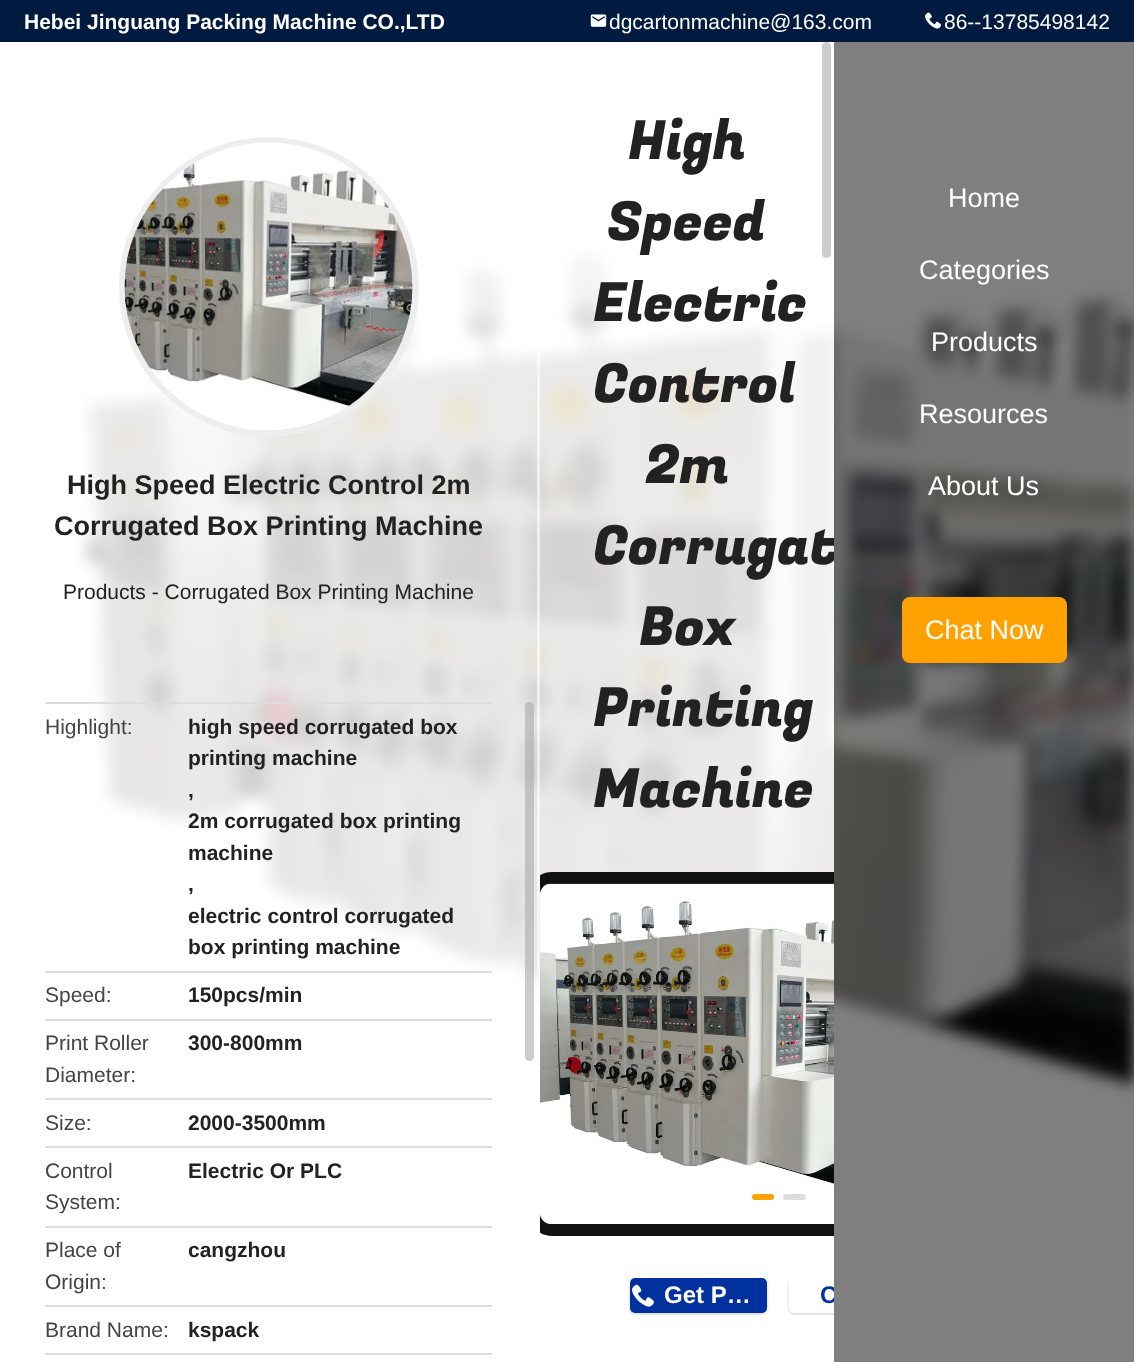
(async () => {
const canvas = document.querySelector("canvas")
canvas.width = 1134
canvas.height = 1362
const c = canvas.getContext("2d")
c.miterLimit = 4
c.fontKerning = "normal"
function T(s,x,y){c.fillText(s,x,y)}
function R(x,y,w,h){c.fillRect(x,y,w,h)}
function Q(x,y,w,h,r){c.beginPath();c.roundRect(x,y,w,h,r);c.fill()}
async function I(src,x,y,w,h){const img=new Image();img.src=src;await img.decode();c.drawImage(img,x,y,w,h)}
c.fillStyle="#fff"
R(0,0,1134,1362)
c.fillStyle="#001b3f"
R(0,0,1134,42)
c.font="bold 21px Liberation Sans"
c.fillStyle="#fff"
T("Hebei Jinguang Packing Machine CO.,LTD",24,29)
await I("1.png",590,14,17,13)
c.font="21px Liberation Sans"
T("dgcartonmachine@163.com",609,29)
await I("2.png",925,12,16,17)
T("86--13785498142",944,29)
await I("5.png",72,246,1062,851)
c.fillStyle="#ffffffcc"
R(540,246,294,767)
c.fillStyle="#ccc"
Q(822,42,9,216,4.5)
c.font="54px Fugaz One"
c.fillStyle="#222"
T("High",628,159)
T("Speed",607,240)
T("Electric",593,321)
T("Control",593,402)
T("2m",645,483)
c.save()
c.beginPath()
c.rect(540,42,294,1320)
c.clip()
T("Corrugat",593,564)
c.restore()
T("Box",639,645)
T("Printing",593,726)
T("Machine",593,807)
c.fillStyle="#00000080"
R(834,42,300,1320)
c.fillStyle="#ffffffcc"
R(72,258,468,739)
c.fillStyle="#ffffff99"
R(537,350,3,637)
c.fillStyle="#aaaaaa99"
Q(525,702,9,359,4.5)
c.save()
c.beginPath()
c.rect(540,42,294,1320)
c.clip()
c.beginPath()
c.roundRect(534,878,489,352,18)
c.strokeStyle="#111"
c.lineWidth=12
c.stroke()
c.restore()
await I("3.png",540,883,294,341)
c.fillStyle="#ffa100"
Q(752,1194,22,6,3)
c.fillStyle="#ddd"
Q(783,1194,23,6,3)
c.fillStyle="#00000033"
c.filter="blur(1.5px)"
c.beginPath()
c.roundRect(630,1280,137,34,5)
c.fill()
c.filter="none"
c.fillStyle="#00319f"
Q(630,1278,137,35,5)
await I("4.png",631,1284,23,23)
c.font="bold 24px Liberation Sans"
c.fillStyle="#fff"
T("Get P…",664,1303)
c.save()
c.beginPath()
c.rect(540,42,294,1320)
c.clip()
c.fillStyle="#00000033"
c.filter="blur(1.5px)"
c.beginPath()
c.roundRect(789,1280,137,34,5)
c.fill()
c.filter="none"
c.restore()
c.beginPath()
c.roundRect(789,1278,45,35,[5,0,0,5])
c.fill()
c.save()
c.beginPath()
c.rect(540,42,294,1320)
c.clip()
c.fillStyle="#00319f"
T("C",820,1303)
c.restore()
c.font="27px Liberation Sans"
T("Home",948,207)
T("Categories",919,279)
T("Products",931,351)
T("Resources",919,423)
T("About Us",928,495)
c.fillStyle="#ffa100"
Q(902,597,165,66,8)
c.fillStyle="#fff"
T("Chat Now",925,639)
c.beginPath()
c.arc(269,287,147,0,7)
c.strokeStyle="#eee"
c.lineWidth=6
c.stroke()
await I("6.png",124,142,289,289)
c.font="bold 27px Liberation Sans"
c.fillStyle="#222"
T("High Speed Electric Control 2m",67,494)
T("Corrugated Box Printing Machine",54,535)
c.font="21px Liberation Sans"
T("Products - Corrugated Box Printing Machine",63,599)
c.fillStyle="#ddd"
R(45,702,447,2)
c.fillStyle="#444"
T("Highlight:",45,734)
c.font="bold 21px Liberation Sans"
c.fillStyle="#222"
T("high speed corrugated box",188,734)
T("printing machine",188,765)
T(",",188,797)
T("2m corrugated box printing",188,828)
T("machine",188,860)
T(",",188,891)
T("electric control corrugated",188,923)
T("box printing machine",188,954)
c.fillStyle="#ddd"
R(45,971,447,2)
c.font="21px Liberation Sans"
c.fillStyle="#444"
T("Speed:",45,1002)
c.font="bold 21px Liberation Sans"
c.fillStyle="#222"
T("150pcs/min",188,1002)
c.fillStyle="#ddd"
R(45,1019,447,2)
c.font="21px Liberation Sans"
c.fillStyle="#444"
T("Print Roller",45,1050)
T("Diameter:",45,1082)
c.font="bold 21px Liberation Sans"
c.fillStyle="#222"
T("300-800mm",188,1050)
c.fillStyle="#ddd"
R(45,1098,447,2)
c.font="21px Liberation Sans"
c.fillStyle="#444"
T("Size:",45,1130)
c.font="bold 21px Liberation Sans"
c.fillStyle="#222"
T("2000-3500mm",188,1130)
c.fillStyle="#ddd"
R(45,1146,447,2)
c.font="21px Liberation Sans"
c.fillStyle="#444"
T("Control",45,1178)
T("System:",45,1209)
c.font="bold 21px Liberation Sans"
c.fillStyle="#222"
T("Electric Or PLC",188,1178)
c.fillStyle="#ddd"
R(45,1226,447,2)
c.font="21px Liberation Sans"
c.fillStyle="#444"
T("Place of",45,1257)
T("Origin:",45,1289)
c.font="bold 21px Liberation Sans"
c.fillStyle="#222"
T("cangzhou",188,1257)
c.fillStyle="#ddd"
R(45,1305,447,2)
c.font="21px Liberation Sans"
c.fillStyle="#444"
T("Brand Name:",45,1337)
c.font="bold 21px Liberation Sans"
c.fillStyle="#222"
T("kspack",188,1337)
c.fillStyle="#ddd"
R(45,1353,447,2)
})()
